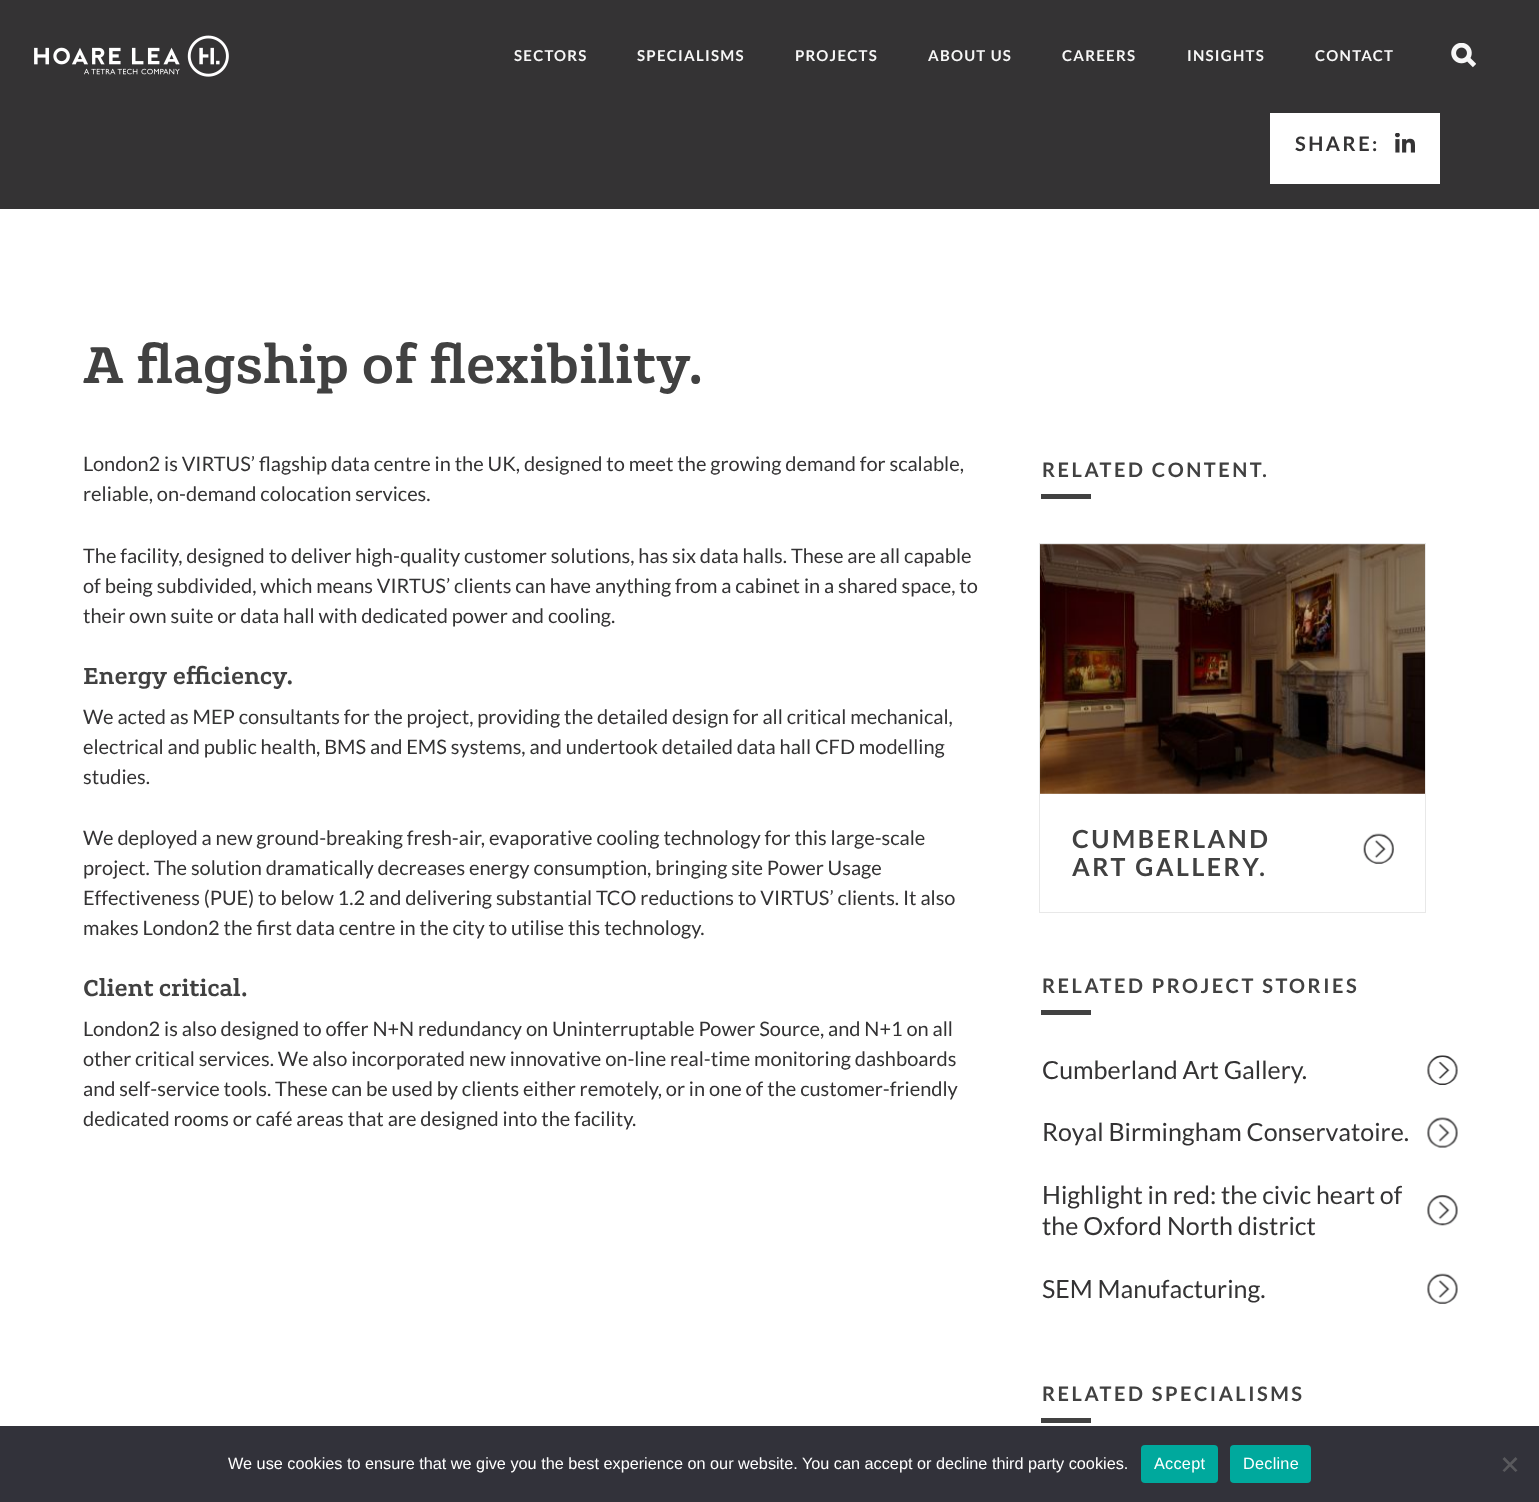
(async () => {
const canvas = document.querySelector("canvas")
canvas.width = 1539
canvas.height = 1502
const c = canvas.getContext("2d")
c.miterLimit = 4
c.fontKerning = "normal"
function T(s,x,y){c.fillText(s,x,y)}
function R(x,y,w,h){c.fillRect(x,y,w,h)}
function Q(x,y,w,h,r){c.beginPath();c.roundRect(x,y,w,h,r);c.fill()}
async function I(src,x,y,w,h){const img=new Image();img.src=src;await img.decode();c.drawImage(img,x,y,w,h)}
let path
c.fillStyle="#fff"
R(0,0,1539,1502)
c.fillStyle="#343334"
R(0,0,1539,209)
await I("1.png",34,35,195,42)
c.letterSpacing="1.25px"
c.font="bold 15px Lato"
c.fillStyle="#f7f7f7"
T("SECTORS",514,61)
T("SPECIALISMS",637,61)
T("PROJECTS",795,61)
T("ABOUT US",928,61)
T("CAREERS",1062,61)
T("INSIGHTS",1187,61)
T("CONTACT",1315,61)
await I("2.png",1451,43,25,25)
c.fillStyle="#fff"
R(1270,113,170,71)
c.letterSpacing="2.5px"
c.font="bold 20px Lato"
c.fillStyle="#343334"
T("SHARE:",1295,151)
await I("3.png",1395,133,20,20)
c.letterSpacing="0px"
c.font="56.25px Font"
c.fillStyle="#414141"
T("A flagship of flexibility.",83,383)
c.font="20px Lato"
c.fillStyle="#343334"
T("London2 is VIRTUS’ flagship data centre in the UK, designed to meet the growing demand for scalable,",83,471)
T("reliable, on-demand colocation services.",83,501)
T("The facility, designed to deliver high-quality customer solutions, has six data halls. These are all capable",83,563)
T("of being subdivided, which means VIRTUS’ clients can have anything from a cabinet in a shared space, to",83,593)
T("their own suite or data hall with dedicated power and cooling.",83,623)
c.font="25px Font"
c.fillStyle="#414141"
T("Energy efficiency.",83,684)
c.font="20px Lato"
c.fillStyle="#343334"
T("We acted as MEP consultants for the project, providing the detailed design for all critical mechanical,",83,724)
T("electrical and public health, BMS and EMS systems, and undertook detailed data hall CFD modelling",83,754)
T("studies.",83,784)
T("We deployed a new ground-breaking fresh-air, evaporative cooling technology for this large-scale",83,845)
T("project. The solution dramatically decreases energy consumption, bringing site Power Usage",83,875)
T("Effectiveness (PUE) to below 1.2 and delivering substantial TCO reductions to VIRTUS’ clients. It also",83,905)
T("makes London2 the first data centre in the city to utilise this technology.",83,935)
c.font="25px Font"
c.fillStyle="#414141"
T("Client critical.",83,996)
c.font="20px Lato"
c.fillStyle="#343334"
T("London2 is also designed to offer N+N redundancy on Uninterruptable Power Source, and N+1 on all",83,1036)
T("other critical services. We also incorporated new innovative on-line real-time monitoring dashboards",83,1066)
T("and self-service tools. These can be used by clients either remotely, or in one of the customer-friendly",83,1096)
T("dedicated rooms or café areas that are designed into the facility.",83,1126)
c.letterSpacing="2.5px"
c.font="bold 20px Lato"
c.fillStyle="#414141"
T("RELATED CONTENT.",1042,477)
R(1041,494,50,5)
c.strokeStyle="#e8e8e8"
c.strokeRect(1039.5,543.5,386,369)
await I("4.png",1040,544,385,250)
c.font="bold 25px Lato"
T("CUMBERLAND",1072,848)
T("ART GALLERY.",1072,876)
await I("5.png",1363,833,31,31)
c.font="bold 20px Lato"
T("RELATED PROJECT STORIES",1042,993)
R(1041,1010,50,5)
c.letterSpacing="0px"
c.font="25px Lato"
c.fillStyle="#343334"
T("Cumberland Art Gallery.",1042,1079)
await I("6.png",1427,1055,31,30)
T("Royal Birmingham Conservatoire.",1042,1141)
await I("7.png",1427,1117,31,31)
T("Highlight in red: the civic heart of",1042,1204)
await I("8.png",1427,1195,31,31)
T("the Oxford North district",1042,1235)
T("SEM Manufacturing.",1042,1298)
await I("9.png",1427,1273,31,31)
c.letterSpacing="2.5px"
c.font="bold 20px Lato"
c.fillStyle="#414141"
T("RELATED SPECIALISMS",1042,1401)
R(1041,1418,50,5)
c.fillStyle="#32323a"
R(0,1426,1539,76)
c.letterSpacing="0px"
c.font="16.25px Liberation Sans"
c.fillStyle="#fff"
T("We use cookies to ensure that we give you the best experience on our website. You can accept or decline third party cookies.",228,1469)
c.fillStyle="#00a99d"
Q(1141,1445,77,38,4)
c.letterSpacing="0.25px"
c.fillStyle="#fff"
T("Accept",1154,1469)
c.fillStyle="#00a99d"
Q(1230,1445,81,38,4)
c.fillStyle="#fff"
T("Decline",1243,1469)
c.fillStyle="#59595d"
path = new Path2D("M1515.5 1457l2 2l-13 13l-2-1.5z")
c.fill(path)
path = new Path2D("M1502.5 1459l2-2l13 13.5l-2 1.5z")
c.fill(path)
})()
